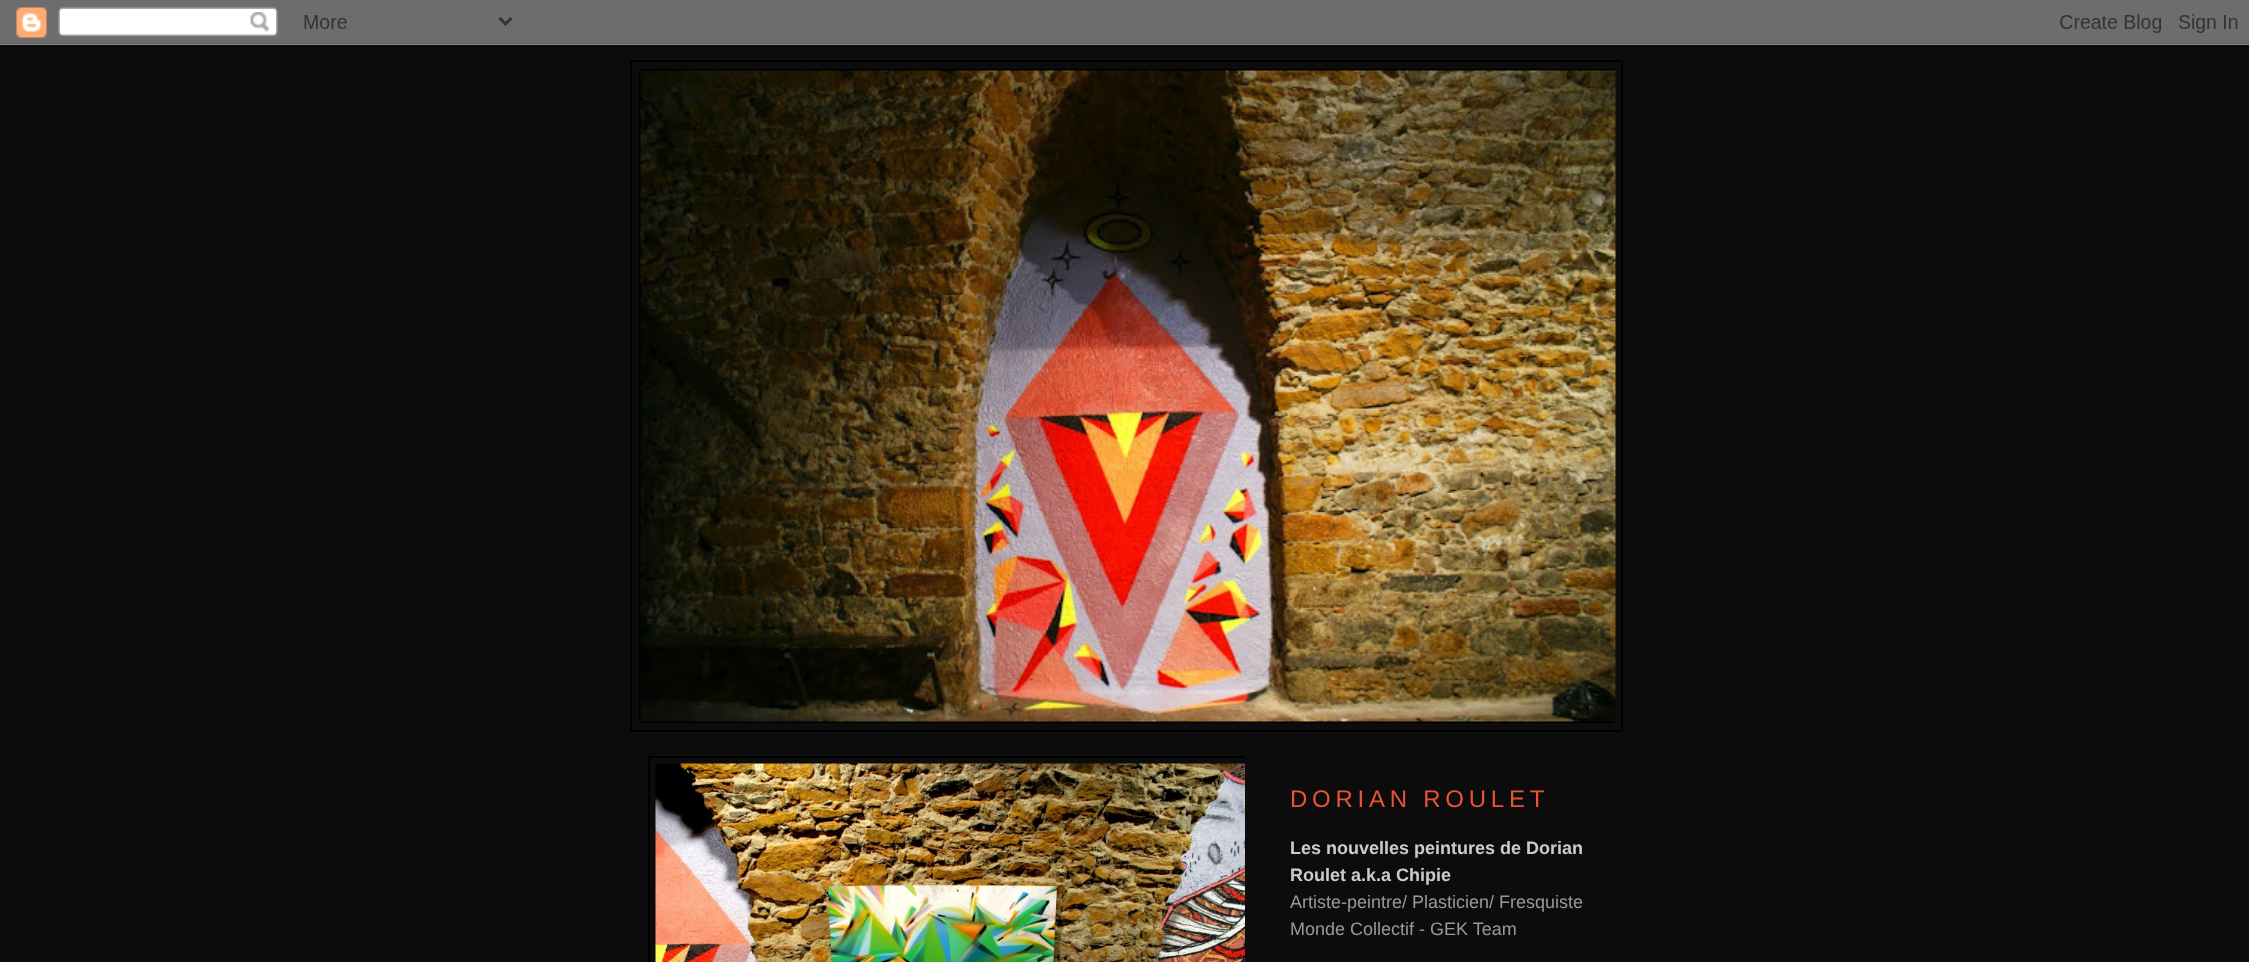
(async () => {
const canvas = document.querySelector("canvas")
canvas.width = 2249
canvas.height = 962
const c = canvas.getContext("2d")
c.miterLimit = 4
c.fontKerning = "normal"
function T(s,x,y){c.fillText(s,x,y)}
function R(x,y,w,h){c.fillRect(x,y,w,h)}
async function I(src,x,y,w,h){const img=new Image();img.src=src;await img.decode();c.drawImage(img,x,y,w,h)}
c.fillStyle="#0c0c0c"
R(0,0,2249,962)
await I("1.png",0,0,2249,45)
c.strokeStyle="#000"
c.lineWidth=2
c.strokeRect(631,61,991,670)
c.strokeRect(640,70,973,652)
await I("2.png",640,70,976,652)
c.save()
c.beginPath()
c.rect(630,747,615,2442)
c.clip()
c.strokeRect(649,757,613,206)
c.restore()
await I("3.png",655,763,590,199)
c.letterSpacing="4.75px"
c.font="24px Liberation Sans"
c.fillStyle="#e95336"
T("DORIAN ROULET",1290,807)
c.letterSpacing="0px"
c.font="bold 18px Liberation Sans"
c.fillStyle="#ccc"
T("Les nouvelles peintures de Dorian",1290,854)
T("Roulet a.k.a Chipie",1290,881)
c.font="18px Liberation Sans"
c.fillStyle="#999"
T("Artiste-peintre/ Plasticien/ Fresquiste",1290,908)
T("Monde Collectif - GEK Team",1290,935)
})()
